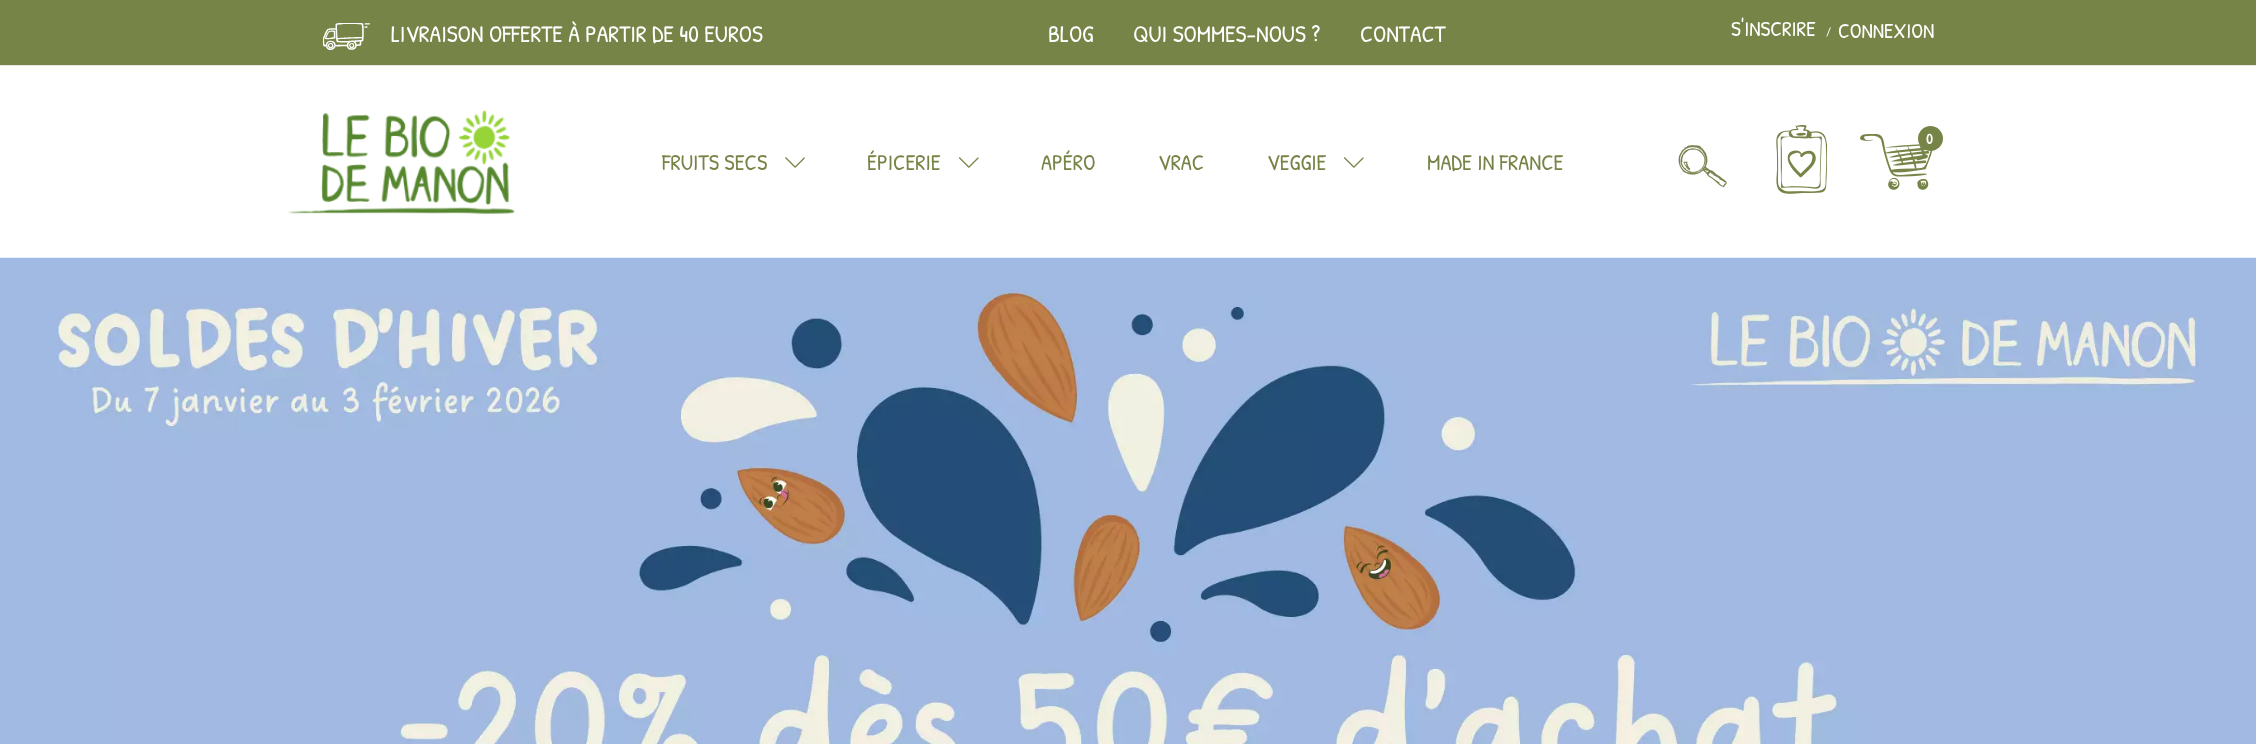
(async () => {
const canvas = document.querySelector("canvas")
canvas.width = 2256
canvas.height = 744
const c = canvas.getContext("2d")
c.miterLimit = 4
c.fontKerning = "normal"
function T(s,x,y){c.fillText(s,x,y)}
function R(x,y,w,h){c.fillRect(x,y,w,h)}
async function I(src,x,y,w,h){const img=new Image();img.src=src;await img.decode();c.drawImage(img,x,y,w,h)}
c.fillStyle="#fff"
R(0,0,2256,744)
c.fillStyle="#778447"
R(0,0,2256,65)
c.fillStyle="#e5e5e5"
R(0,65,2256,1)
await I("1.png",323,23,47,27)
c.font="23.75px Patrick Hand"
c.fillStyle="#fff"
T("LIVRAISON OFFERTE À PARTIR DE 40 EUROS",391,42)
T("BLOG",1048,42)
T("QUI SOMMES-NOUS ?",1133,42)
T("CONTACT",1360,42)
c.font="21.25px Patrick Hand"
T("S'INSCRIRE",1731,36)
c.font="12px Patrick Hand"
T("/",1826,36)
c.font="21.25px Patrick Hand"
T("CONNEXION",1838,38)
await I("2.png",288,110,227,104)
await I("3.png",1776,125,51,69)
await I("4.png",1860,134,73,56)
c.fillStyle="#778447"
c.beginPath()
c.arc(1930.5,138.5,12.5,0,7)
c.fill()
c.font="bold 15px Patrick Hand"
c.fillStyle="#fff"
T("0",1926,144)
await I("5.png",1678,145,49,43)
c.font="22.5px Patrick Hand"
c.fillStyle="#778447"
T("FRUITS SECS",662,170)
await I("6.png",785,157,20,11)
T("ÉPICERIE",867,170)
await I("7.png",958,157,21,11)
T("APÉRO",1041,170)
T("VRAC",1158,170)
T("VEGGIE",1267,170)
await I("7.png",1343,157,21,11)
T("MADE IN FRANCE",1427,170)
await I("8.png",0,257,2256,487)
})()
